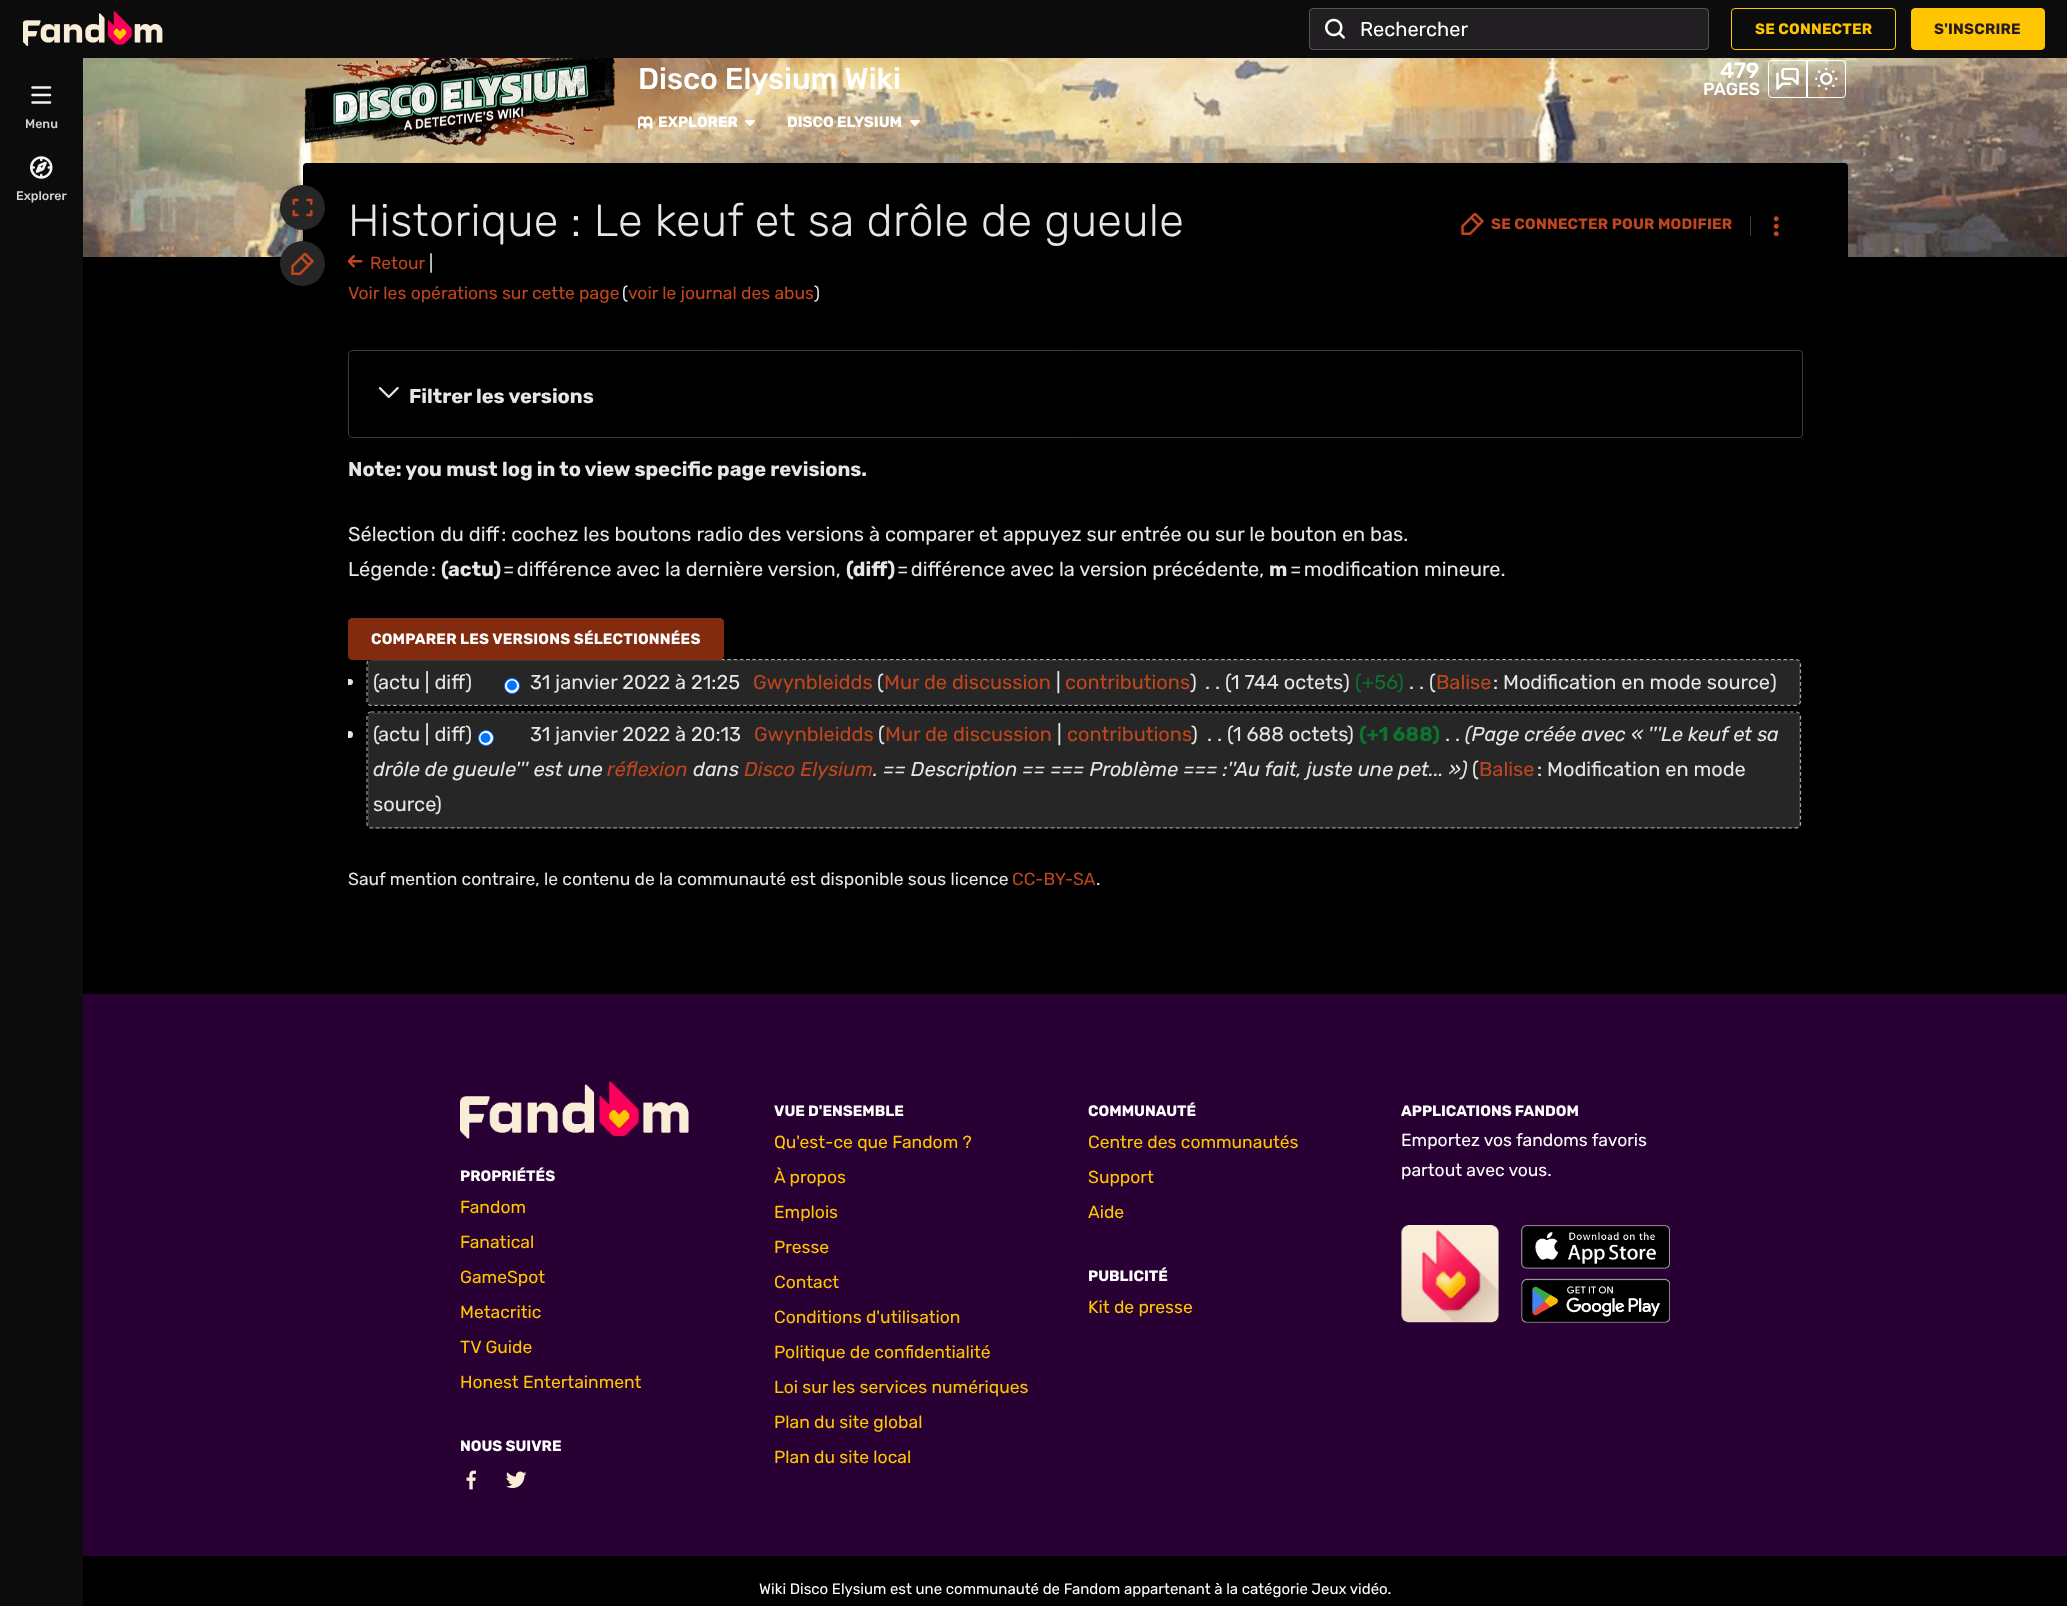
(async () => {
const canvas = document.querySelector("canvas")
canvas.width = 2067
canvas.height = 1606
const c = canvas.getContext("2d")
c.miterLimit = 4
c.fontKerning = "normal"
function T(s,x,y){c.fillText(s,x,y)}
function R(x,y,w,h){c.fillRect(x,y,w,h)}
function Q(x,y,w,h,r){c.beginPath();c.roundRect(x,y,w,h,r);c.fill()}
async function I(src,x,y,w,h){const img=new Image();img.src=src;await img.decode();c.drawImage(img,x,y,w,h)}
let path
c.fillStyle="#000"
R(0,0,2067,1606)
c.fillStyle="#0c0c0c"
R(0,0,2067,58)
await I("1.png",23,11,140,36)
c.fillStyle="#211f21"
Q(1309,8,400,42,4)
c.beginPath()
c.roundRect(1309.5,8.5,399,41,3.5)
c.strokeStyle="#f5f3f540"
c.stroke()
await I("2.png",1325,18,20,21)
c.font="20px Rubik"
c.fillStyle="#fff"
T("Rechercher",1360,36)
c.beginPath()
c.roundRect(1731.5,8.5,164,41,3.5)
c.strokeStyle="#ffc500"
c.stroke()
c.letterSpacing="0.2px"
c.font="bold 15px Rubik"
c.fillStyle="#ffc500"
T("SE CONNECTER",1755,34)
c.beginPath()
c.roundRect(1911.5,8.5,133,41,3.5)
c.fill()
c.stroke()
c.fillStyle="#291927"
T("S'INSCRIRE",1934,34)
c.fillStyle="#0c0c0c"
R(0,58,83,1548)
await I("3.png",31,86,21,18)
c.letterSpacing="0px"
c.font="500 12.5px Rubik"
c.fillStyle="#d6d0d5"
T("Menu",25,128)
await I("4.png",30,156,23,23)
T("Explorer",16,200)
await I("5.png",83,58,1984,199)
await I("6.png",304,58,311,89)
c.font="500 30px Rubik"
c.fillStyle="#fff"
T("Disco Elysium Wiki",638,89)
c.font="500 22px Rubik"
T("479",1720,78)
c.font="500 17.5px Rubik"
T("PAGES",1703,95)
c.beginPath()
c.roundRect(1768.5,60.5,39,37,[3.5,0,0,3.5])
c.strokeStyle="#fff"
c.stroke()
await I("7.png",1776,68,23,22)
c.beginPath()
c.roundRect(1806.5,60.5,39,37,[0,3.5,3.5,0])
c.stroke()
await I("8.png",1815,68,23,22)
await I("9.png",638,116,15,13)
c.font="bold 15px Rubik"
T("EXPLORER",658,127)
await I("10.png",745,120,10,6)
T("DISCO ELYSIUM",787,127)
await I("11.png",910,120,10,6)
c.fillStyle="#000"
Q(303,163,1545,793,4)
await I("14.png",348,255,15,13)
c.fillStyle="#0000004d"
c.filter="blur(7.5px)"
c.beginPath()
c.roundRect(280,189,45,45,22.5)
c.fill()
c.filter="none"
c.fillStyle="#262626"
c.beginPath()
c.arc(302.5,207.5,22.5,0,7)
c.fill()
await I("12.png",292,198,21,19)
c.fillStyle="#0000004d"
c.filter="blur(7.5px)"
c.beginPath()
c.roundRect(280,245,45,45,22.5)
c.fill()
c.filter="none"
c.fillStyle="#262626"
c.beginPath()
c.arc(302.5,263.5,22.5,0,7)
c.fill()
await I("13.png",291,253,23,22)
c.letterSpacing="0.3px"
c.font="300 45px Rubik"
c.fillStyle="#e6e6e6"
T("Historique : Le keuf et sa drôle de gueule",348,236)
c.letterSpacing="0px"
c.font="17.5px Rubik"
c.fillStyle="#c1461e"
T("Retour",370,269)
c.fillStyle="#e6e6e6"
T("|",429,269)
c.fillStyle="#c1461e"
T("Voir les opérations sur cette page",348,299)
c.fillStyle="#e6e6e6"
T("(",622,299)
c.fillStyle="#c1461e"
T("voir le journal des abus",628,299)
c.fillStyle="#e6e6e6"
T(")",814,299)
await I("15.png",1461,213,23,22)
c.letterSpacing="0.2px"
c.font="bold 15px Rubik"
c.fillStyle="#c1461e"
T("SE CONNECTER POUR MODIFIER",1491,229)
c.fillStyle="#3a3a3a"
R(1750,216,1,20)
await I("16.png",1773,216,6,21)
c.beginPath()
c.roundRect(348.5,350.5,1454,87,3.5)
c.strokeStyle="#3a3a3a"
c.stroke()
await I("17.png",379,387,20,11)
c.letterSpacing="0px"
c.font="bold 20px Rubik"
c.fillStyle="#e6e6e6"
T("Filtrer les versions",409,403)
T("Note: you must log in to view specific page revisions.",348,476)
c.font="20px Rubik"
T("Sélection du diff : cochez les boutons radio des versions à comparer et appuyez sur entrée ou sur le bouton en bas.",348,541)
T("Légende :",348,576)
c.font="bold 20px Rubik"
T("(actu)",441,576)
c.font="20px Rubik"
T("= différence avec la dernière version,",503,576)
c.font="bold 20px Rubik"
T("(diff)",846,576)
c.font="20px Rubik"
T("= différence avec la version précédente,",897,576)
c.font="bold 20px Rubik"
T("m",1269,576)
c.font="20px Rubik"
T("= modification mineure.",1290,576)
c.fillStyle="#262626"
c.beginPath()
c.roundRect(368.5,660.5,1431,44,3.5)
c.fill()
c.stroke()
c.fillStyle="#e6e6e6"
T("(",373,689)
T("actu | diff)",378,689)
c.fillStyle="#fff"
c.beginPath()
c.arc(512,686,7.5,0,7)
c.fill()
c.strokeStyle="#0075ff"
c.stroke()
c.fillStyle="#0075ff"
c.beginPath()
c.arc(512,685.5,5,0,7)
c.fill()
c.fillStyle="#e6e6e6"
T("31 janvier 2022 à 21:25",530,689)
c.fillStyle="#c1461e"
T("Gwynbleidds",753,689)
c.fillStyle="#e6e6e6"
T("(",877,689)
c.fillStyle="#c1461e"
T("Mur de discussion",884,689)
c.fillStyle="#e6e6e6"
T("|",1056,689)
c.fillStyle="#c1461e"
T("contributions",1065,689)
c.fillStyle="#e6e6e6"
T(")",1190,689)
T(". . (",1205,689)
T("1 744 octets",1231,689)
T(")",1343,689)
c.fillStyle="#0c742f"
T("(+56",1355,689)
T(")",1397,689)
c.fillStyle="#e6e6e6"
T(". . (",1409,689)
c.fillStyle="#c1461e"
T("Balise",1436,689)
c.fillStyle="#e6e6e6"
T(":",1493,689)
T("Modification en mode source",1503,689)
T(")",1770,689)
path = new Path2D("M371 659.5h1425c2.5 0 4.5 2 4.5 4.5v37c0 2.5-2 4.5-4.5 4.5h-1425c-2 0-4-2-4-4.5v-37c0-2.5 2-4.5 4-4.5z")
c.strokeStyle="#a2a9b1"
c.lineWidth=1.2
c.setLineDash([3.75,2.5])
c.stroke(path)
c.fillStyle="#822b0e"
c.beginPath()
c.roundRect(348.5,618.5,375,41,3.5)
c.fill()
c.strokeStyle="#822b0e"
c.lineWidth=1
c.setLineDash([])
c.stroke()
c.letterSpacing="0.2px"
c.font="bold 15px Rubik"
c.fillStyle="#fff"
T("COMPARER LES VERSIONS SÉLECTIONNÉES",371,644)
c.save()
c.beginPath()
c.rect(348,335,1455,500)
c.clip()
c.fillStyle="#e6e6e6"
Q(346,679,7,6,3)
c.restore()
c.fillStyle="#262626"
c.beginPath()
c.roundRect(368.5,713.5,1431,114,3.5)
c.fill()
c.strokeStyle="#3a3a3a"
c.stroke()
c.letterSpacing="0px"
c.font="20px Rubik"
c.fillStyle="#e6e6e6"
T("(",373,741)
T("actu | diff)",378,741)
c.fillStyle="#fff"
c.beginPath()
c.arc(486,738,7.5,0,7)
c.fill()
c.strokeStyle="#0075ff"
c.stroke()
c.fillStyle="#0075ff"
c.beginPath()
c.arc(485.5,738,5,0,7)
c.fill()
c.fillStyle="#e6e6e6"
T("31 janvier 2022 à 20:13",530,741)
c.fillStyle="#c1461e"
T("Gwynbleidds",754,741)
c.fillStyle="#e6e6e6"
T("(",878,741)
c.fillStyle="#c1461e"
T("Mur de discussion",885,741)
c.fillStyle="#e6e6e6"
T("|",1057,741)
c.fillStyle="#c1461e"
T("contributions",1067,741)
c.fillStyle="#e6e6e6"
T(")",1191,741)
T(". . (",1207,741)
T("1 688 octets",1233,741)
T(")",1347,741)
c.font="bold 20px Rubik"
c.fillStyle="#0c742f"
T("(+1 688)",1359,741)
c.font="italic 20px Rubik"
c.fillStyle="#e6e6e6"
T("(Page créée avec « '''Le keuf et sa",1465,741)
c.font="20px Rubik"
T(". .",1445,741)
c.font="italic 20px Rubik"
T("drôle de gueule''' est une",373,776)
c.fillStyle="#c1461e"
T("réflexion",607,776)
c.fillStyle="#e6e6e6"
T("dans",693,776)
c.fillStyle="#c1461e"
T("Disco Elysium",744,776)
c.fillStyle="#e6e6e6"
T(". == Description == === Problème === :''Au fait, juste une pet... »)",873,776)
c.font="20px Rubik"
T("(",1472,776)
c.fillStyle="#c1461e"
T("Balise",1479,776)
c.fillStyle="#e6e6e6"
T(": Modification en mode",1537,776)
T("source",373,811)
T(")",435,811)
path = new Path2D("M371 712h1425c2.5 0 4.5 2 4.5 4v108c0 2-2 4-4.5 4h-1425c-2 0-4-2-4-4v-108c0-2 2-4 4-4z")
c.strokeStyle="#a2a9b1"
c.lineWidth=1.2
c.setLineDash([3.75,2.5])
c.stroke(path)
c.save()
c.beginPath()
c.rect(348,335,1455,500)
c.clip()
c.beginPath()
c.arc(349.5,734.5,3.5,0,7)
c.fill()
c.restore()
c.font="17.5px Rubik"
T("Sauf mention contraire, le contenu de la communauté est disponible sous licence",348,885)
c.fillStyle="#c1461e"
T("CC-BY-SA",1012,885)
c.fillStyle="#e6e6e6"
T(".",1096,885)
c.fillStyle="#280033"
R(83,994,1984,562)
c.font="bold 15px Rubik"
c.fillStyle="#fff"
T("VUE D'ENSEMBLE",774,1116)
c.font="17.5px Rubik"
c.fillStyle="#ffc500"
T("Qu'est-ce que Fandom ?",774,1148)
T("À propos",774,1183)
T("Emplois",774,1218)
T("Presse",774,1253)
T("Contact",774,1288)
T("Conditions d'utilisation",774,1323)
T("Politique de confidentialité",774,1358)
T("Loi sur les services numériques",774,1393)
T("Plan du site global",774,1428)
T("Plan du site local",774,1463)
c.font="bold 15px Rubik"
c.fillStyle="#fff"
T("COMMUNAUTÉ",1088,1116)
c.font="17.5px Rubik"
c.fillStyle="#ffc500"
T("Centre des communautés",1088,1148)
T("Support",1088,1183)
T("Aide",1088,1218)
c.font="bold 15px Rubik"
c.fillStyle="#fff"
T("PUBLICITÉ",1088,1281)
c.font="17.5px Rubik"
c.fillStyle="#ffc500"
T("Kit de presse",1088,1313)
c.font="bold 15px Rubik"
c.fillStyle="#fff"
T("APPLICATIONS FANDOM",1401,1116)
c.font="17.5px Rubik"
T("Emportez vos fandoms favoris",1401,1146)
T("partout avec vous.",1401,1176)
await I("18.png",1401,1225,98,98)
await I("19.png",1521,1225,149,44)
await I("20.png",1521,1278,149,45)
await I("21.png",460,1081,229,58)
c.font="bold 15px Rubik"
T("PROPRIÉTÉS",460,1181)
c.font="17.5px Rubik"
c.fillStyle="#ffc500"
T("Fandom",460,1213)
T("Fanatical",460,1248)
T("GameSpot",460,1283)
T("Metacritic",460,1318)
T("TV Guide",460,1353)
T("Honest Entertainment",460,1388)
c.font="bold 15px Rubik"
c.fillStyle="#fff"
T("NOUS SUIVRE",460,1451)
await I("22.png",466,1470,10,20)
await I("23.png",506,1471,21,18)
c.font="15px Rubik"
T("Wiki Disco Elysium est une communauté de Fandom appartenant à la catégorie Jeux vidéo.",759,1594)
})()
